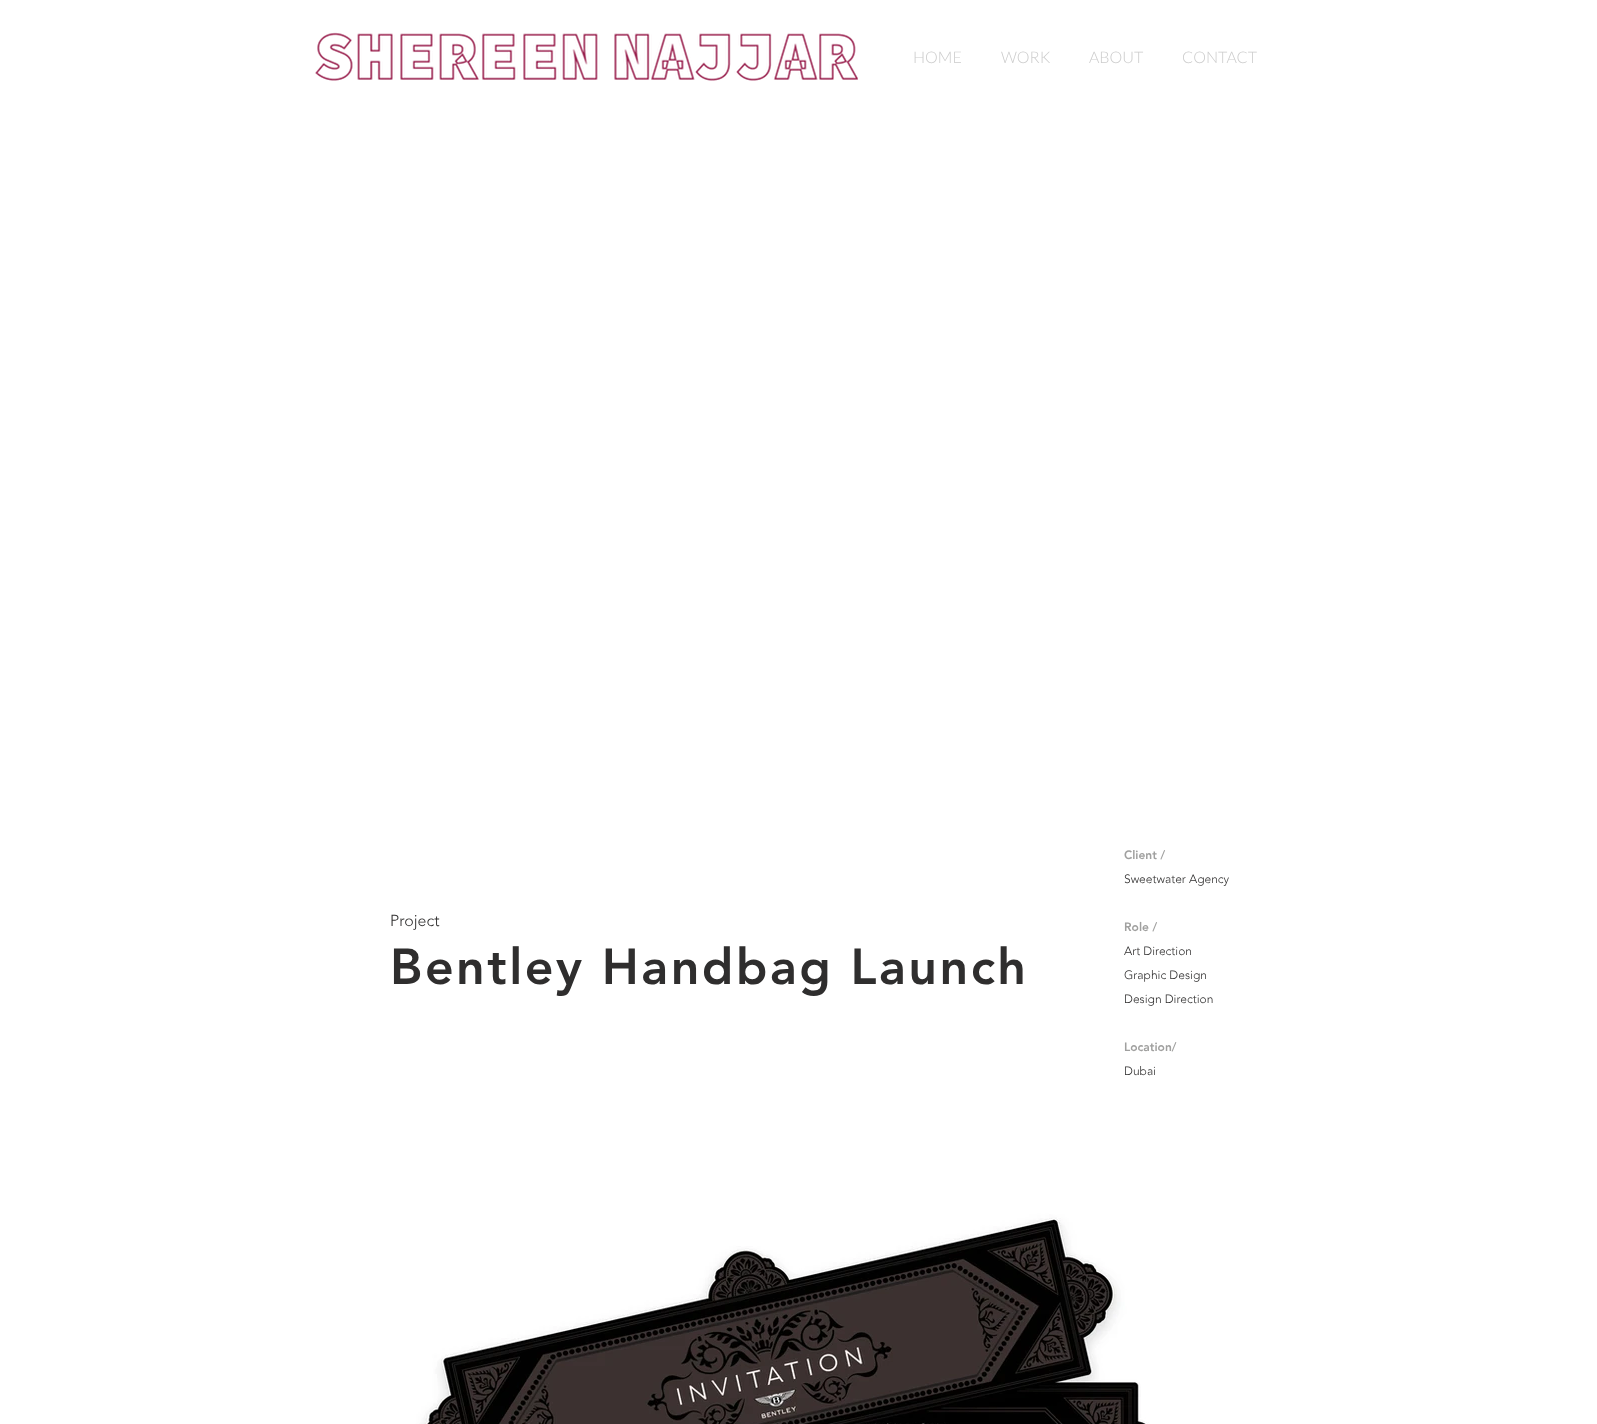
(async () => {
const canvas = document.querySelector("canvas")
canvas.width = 1597
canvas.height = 1424
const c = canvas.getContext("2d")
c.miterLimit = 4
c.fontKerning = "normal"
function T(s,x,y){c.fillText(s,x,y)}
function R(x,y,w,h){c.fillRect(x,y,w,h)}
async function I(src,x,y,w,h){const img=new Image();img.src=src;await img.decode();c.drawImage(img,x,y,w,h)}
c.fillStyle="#fff"
R(0,0,1597,1424)
await I("1.png",315,32,543,49)
c.font="300 16px Lato"
c.fillStyle="#ccc"
T("HOME",913,63)
T("WORK",1001,63)
T("ABOUT",1089,63)
T("CONTACT",1182,63)
c.font="300 16px 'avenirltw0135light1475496'"
c.fillStyle="#2f2e2e"
T("Project",390,926)
c.font="900 12px 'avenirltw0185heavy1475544'"
c.fillStyle="#a0a09f"
T("Client /",1124,859)
c.font="300 12px 'avenirltw0135light1475496'"
c.fillStyle="#2f2e2e"
T("Sweetwater Agency",1124,883)
c.font="900 12px 'avenirltw0185heavy1475544'"
c.fillStyle="#a0a09f"
T("Role /",1124,931)
c.font="300 12px 'avenirltw0135light1475496'"
c.fillStyle="#2f2e2e"
T("Art Direction",1124,955)
T("Graphic Design",1124,979)
T("Design Direction",1124,1003)
c.font="900 12px 'avenirltw0185heavy1475544'"
c.fillStyle="#a0a09f"
T("Location/",1124,1051)
c.font="300 12px 'avenirltw0135light1475496'"
c.fillStyle="#2f2e2e"
T("Dubai",1124,1075)
c.letterSpacing="2.5px"
c.font="900 50px 'avenirltw0185heavy1475544'"
T("Bentley Handbag Launch",390,984)
await I("2.png",397,1174,823,250)
})()
